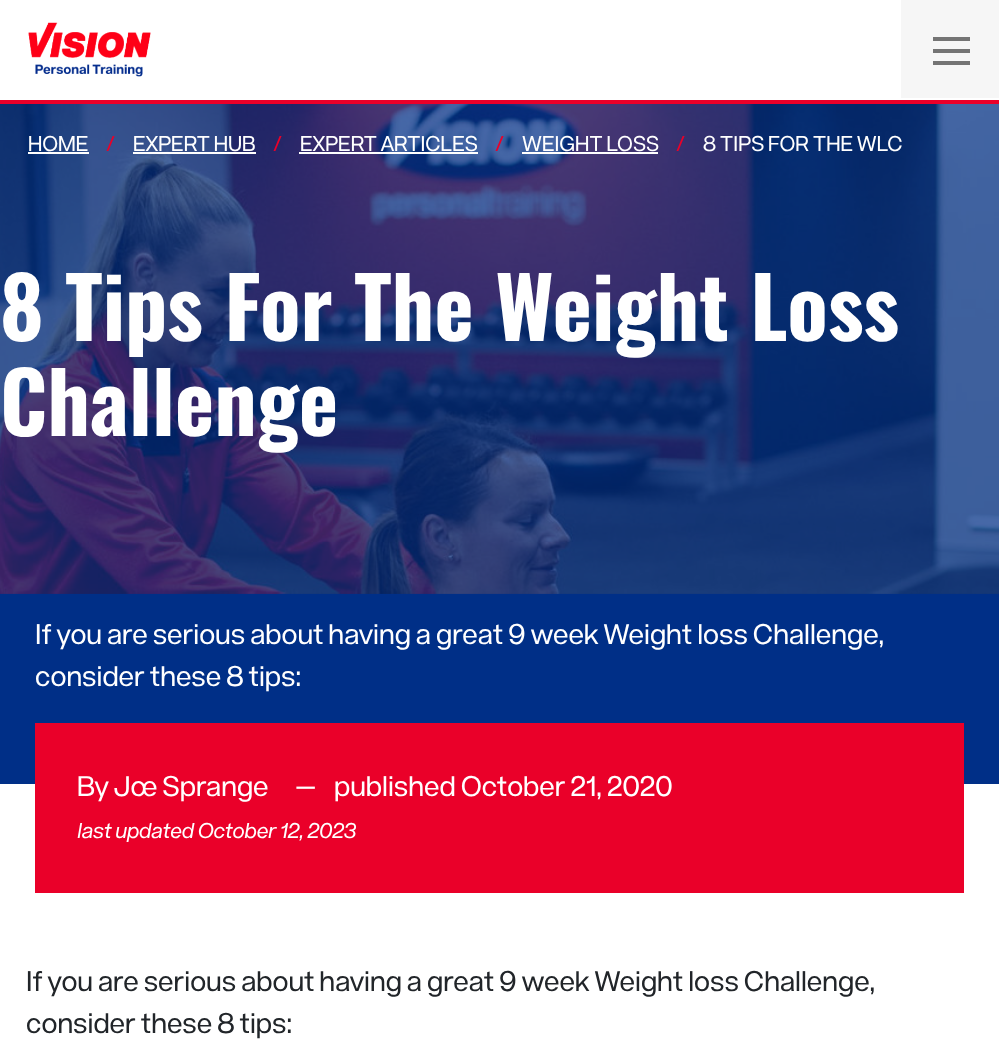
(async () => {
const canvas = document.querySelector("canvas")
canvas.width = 999
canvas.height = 1040
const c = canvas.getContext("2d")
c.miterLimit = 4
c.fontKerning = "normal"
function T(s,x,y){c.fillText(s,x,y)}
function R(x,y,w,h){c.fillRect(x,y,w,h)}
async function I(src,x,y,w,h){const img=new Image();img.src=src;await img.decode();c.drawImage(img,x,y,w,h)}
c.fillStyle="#fff"
R(0,0,999,1040)
await I("1.png",28,22,123,55)
c.fillStyle="#f6f6f6"
R(901,0,98,98)
c.fillStyle="#747474"
R(933,37,37,4)
R(933,49,37,4)
R(933,61,37,4)
c.fillStyle="#ea0029"
R(0,100,999,4)
c.fillStyle="#002f87"
R(0,593,999,191)
await I("2.png",0,104,999,490)
c.font="21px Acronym"
c.fillStyle="#fff"
T("HOME",28,151)
R(28,152,61,2)
c.fillStyle="#ea0029"
T("/",106,151)
c.fillStyle="#fff"
T("EXPERT HUB",133,151)
R(133,152,123,2)
c.fillStyle="#ea0029"
T("/",273,151)
c.fillStyle="#fff"
T("EXPERT ARTICLES",300,151)
R(299,152,179,2)
c.fillStyle="#ea0029"
T("/",495,151)
c.fillStyle="#fff"
T("WEIGHT LOSS",522,151)
R(522,152,136,2)
c.fillStyle="#ea0029"
T("/",676,151)
c.fillStyle="#fff"
T("8 TIPS FOR THE WLC",703,151)
c.font="bold 84px Oswald"
T("8 Tips For The Weight Loss",0,341)
T("Challenge",0,436)
c.font="28px Acronym"
T("If you are serious about having a great 9 week Weight loss Challenge,",35,644)
T("consider these 8 tips:",35,686)
c.fillStyle="#ea0029"
R(35,723,929,170)
c.fillStyle="#fff"
T("By Joe Sprange",77,796)
T("—",295,795)
T("published October 21, 2020",334,796)
c.font="italic 21px Acronym"
T("last updated October 12, 2023",77,838)
c.font="28px Acronym"
c.fillStyle="#212529"
T("If you are serious about having a great 9 week Weight loss Challenge,",26,991)
T("consider these 8 tips:",26,1033)
})()
